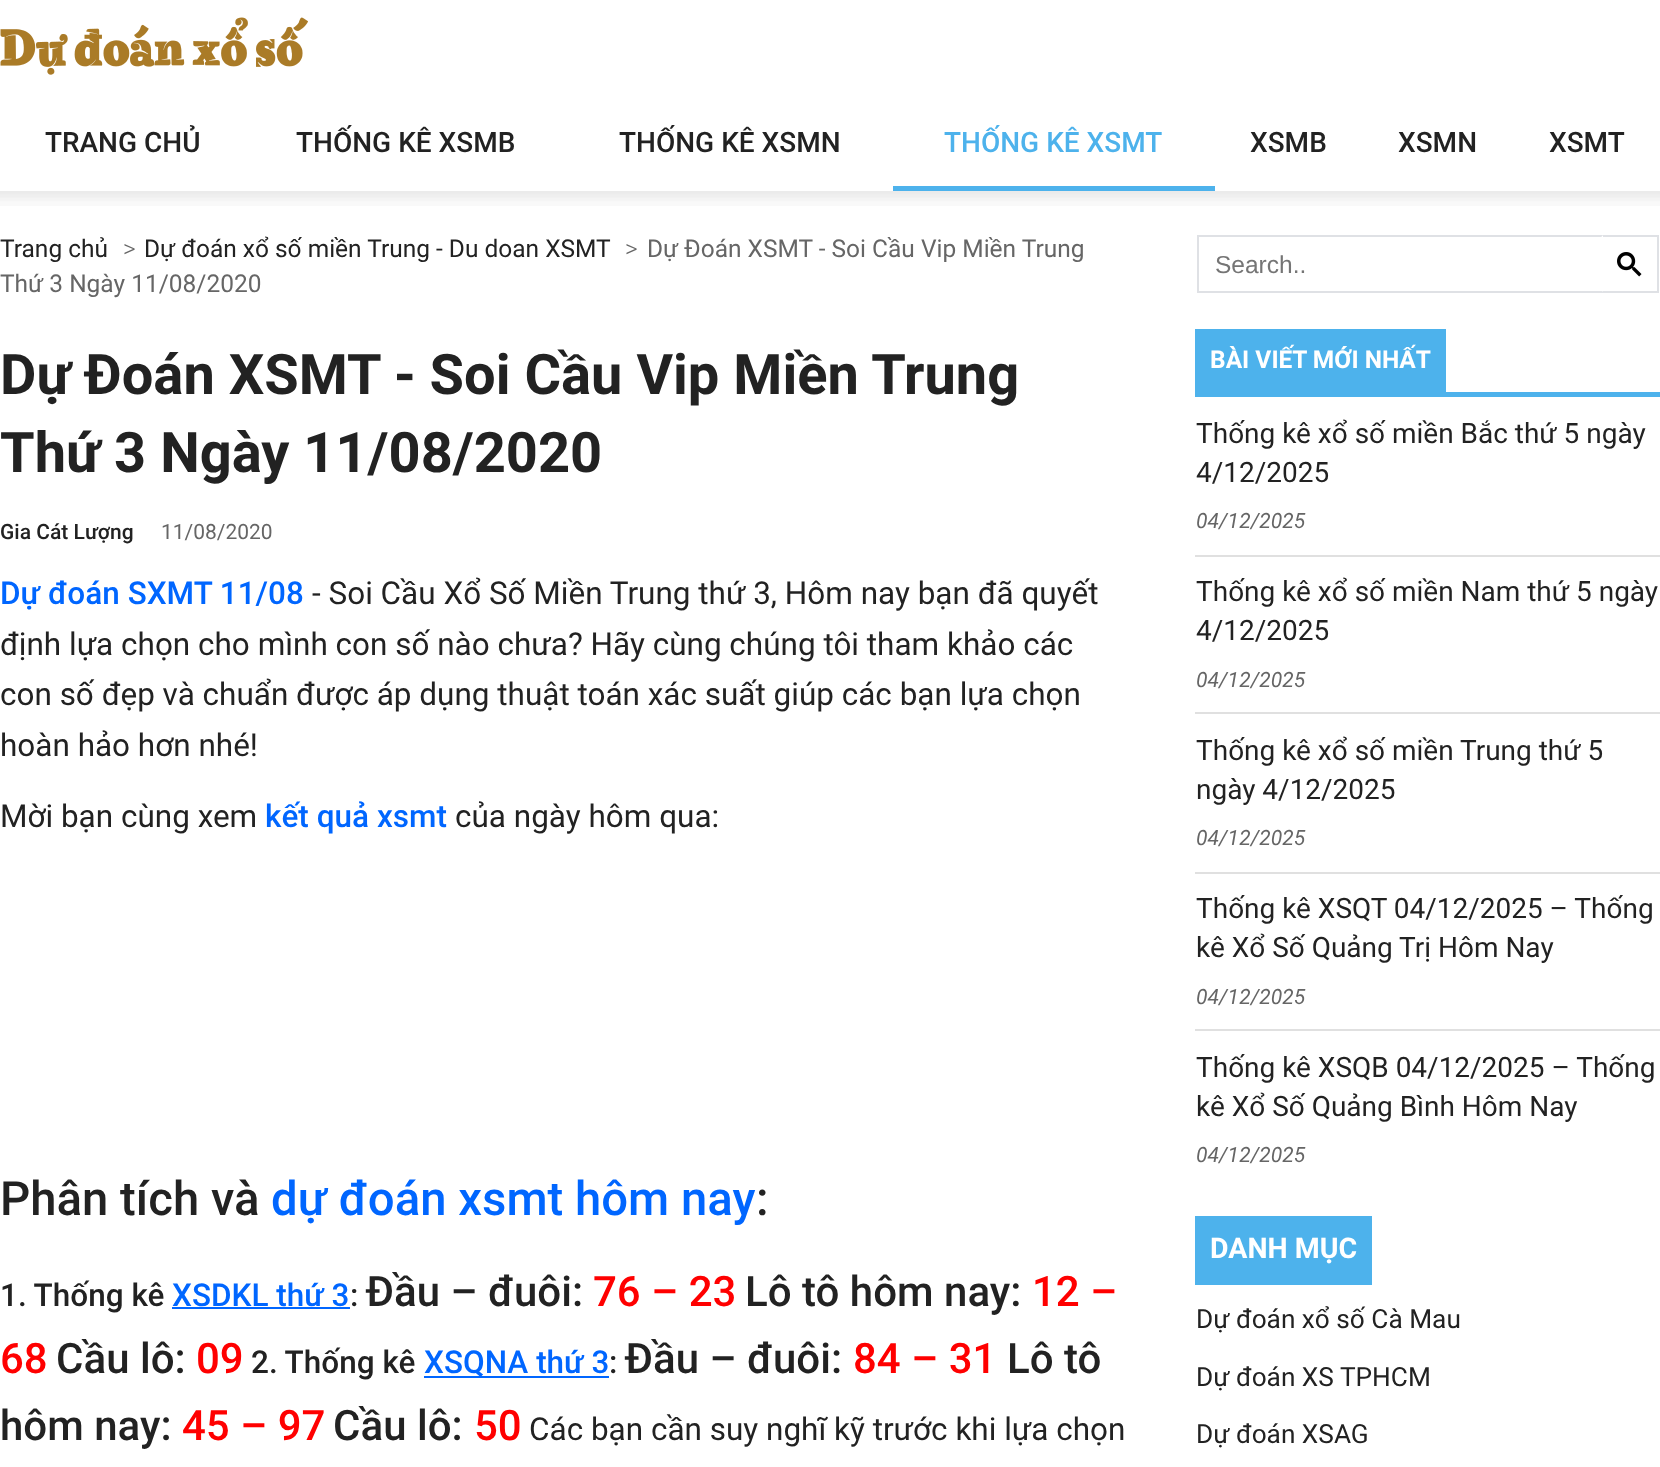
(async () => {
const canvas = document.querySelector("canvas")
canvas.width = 1660
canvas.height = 1467
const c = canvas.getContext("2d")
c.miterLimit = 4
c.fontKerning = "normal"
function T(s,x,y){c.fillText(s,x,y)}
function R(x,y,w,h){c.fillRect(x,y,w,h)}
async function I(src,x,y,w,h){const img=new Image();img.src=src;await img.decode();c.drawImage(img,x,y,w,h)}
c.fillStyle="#fff"
R(0,0,1660,1467)
await I("1.png",0,17,308,58)
c.font="500 28px Roboto"
c.fillStyle="#222"
T("TRANG CHỦ",45,152)
T("THỐNG KÊ XSMB",296,152)
T("THỐNG KÊ XSMN",619,152)
c.fillStyle="#4db2ec"
R(893,186,322,5)
T("THỐNG KÊ XSMT",944,152)
c.fillStyle="#222"
T("XSMB",1250,152)
T("XSMN",1398,152)
T("XSMT",1549,152)
await I("2.png",0,191,1660,15)
c.font="24.5px Roboto"
T("Trang chủ",0,257)
c.font="300 24.5px Roboto"
c.fillStyle="#666"
T(">",123,257)
c.font="24.5px Roboto"
c.fillStyle="#222"
T("Dự đoán xổ số miền Trung - Du doan XSMT",144,257)
c.font="300 24.5px Roboto"
c.fillStyle="#666"
T(">",625,257)
c.font="24.5px Roboto"
T("Dự Đoán XSMT - Soi Cầu Vip Miền Trung",647,257)
T("Thứ 3 Ngày 11/08/2020",0,292)
c.font="bold 56px Roboto"
c.fillStyle="#222"
T("Dự Đoán XSMT - Soi Cầu Vip Miền Trung",0,394)
T("Thứ 3 Ngày 11/08/2020",0,472)
c.font="500 21px Roboto"
T("Gia Cát Lượng",0,539)
c.font="21px Roboto"
c.fillStyle="#666"
T("11/08/2020",161,539)
c.font="500 31.5px Roboto"
c.fillStyle="#06f"
T("Dự đoán SXMT 11/08",0,604)
c.font="31.5px Roboto"
c.fillStyle="#222"
T("- Soi Cầu Xổ Số Miền Trung thứ 3, Hôm nay bạn đã quyết",312,604)
T("định lựa chọn cho mình con số nào chưa? Hãy cùng chúng tôi tham khảo các",0,655)
T("con số đẹp và chuẩn được áp dụng thuật toán xác suất giúp các bạn lựa chọn",0,705)
T("hoàn hảo hơn nhé!",0,756)
T("Mời bạn cùng xem",0,827)
c.font="500 31.5px Roboto"
c.fillStyle="#06f"
T("kết quả xsmt",265,827)
c.font="31.5px Roboto"
c.fillStyle="#222"
T("của ngày hôm qua:",455,827)
c.font="500 47.25px Roboto"
T("Phân tích và",0,1215)
c.fillStyle="#06f"
T("dự đoán xsmt hôm nay",271,1215)
c.fillStyle="#222"
T(":",756,1215)
c.font="500 31.5px Roboto"
T("1. Thống kê",0,1306)
c.fillStyle="#06f"
T("XSDKL thứ 3",172,1306)
c.fillStyle="#222"
T(":",350,1306)
c.fillStyle="#06f"
R(172,1307,178,2)
c.font="500 42px Roboto"
c.fillStyle="#222"
T("Đầu – đuôi:",366,1306)
c.fillStyle="#f00"
T("76 – 23",593,1306)
c.fillStyle="#222"
T("Lô tô hôm nay:",745,1306)
c.fillStyle="#f00"
T("12 –",1032,1306)
T("68",0,1373)
c.fillStyle="#222"
T("Cầu lô:",56,1373)
c.fillStyle="#f00"
T("09",196,1373)
c.font="500 31.5px Roboto"
c.fillStyle="#222"
T("2. Thống kê",251,1373)
c.fillStyle="#06f"
R(424,1376,185,2)
T("XSQNA thứ 3",424,1373)
c.fillStyle="#222"
T(":",609,1373)
c.font="500 42px Roboto"
T("Đầu – đuôi:",625,1373)
c.fillStyle="#f00"
T("84 – 31",853,1373)
c.fillStyle="#222"
T("Lô tô",1007,1373)
T("hôm nay:",0,1440)
c.fillStyle="#f00"
T("45 – 97",182,1440)
c.fillStyle="#222"
T("Cầu lô:",333,1440)
c.fillStyle="#f00"
T("50",474,1440)
c.font="31.5px Roboto"
c.fillStyle="#222"
T("Các bạn cần suy nghĩ kỹ trước khi lựa chọn",529,1440)
c.fillStyle="#dfe1e5"
R(1197,235,406,2)
R(1197,291,406,2)
R(1197,235,2,57)
c.font="24.5px Liberation Sans"
c.fillStyle="#757575"
T("Search..",1215,273)
c.fillStyle="#fff"
c.beginPath()
c.roundRect(1601,235,58,57,[4,0,0,4])
c.fill()
c.fillStyle="#dfe1e5"
R(1603,235,56,2)
R(1657,235,2,57)
R(1603,291,56,2)
await I("3.png",1617,252,25,25)
c.fillStyle="#4db2ec"
R(1195,392,465,5)
R(1195,329,251,63)
c.font="bold 24.5px Roboto"
c.fillStyle="#fff"
T("BÀI VIẾT MỚI NHẤT",1210,368)
c.fillStyle="#e0e0e0"
R(1195,555,465,2)
c.font="28px Roboto"
c.fillStyle="#222"
T("Thống kê xổ số miền Bắc thứ 5 ngày",1196,443)
T("4/12/2025",1196,482)
c.font="italic 21px Roboto"
c.fillStyle="#666"
T("04/12/2025",1196,528)
c.fillStyle="#e0e0e0"
R(1195,712,465,2)
c.font="28px Roboto"
c.fillStyle="#222"
T("Thống kê xổ số miền Nam thứ 5 ngày",1196,601)
T("4/12/2025",1196,640)
c.font="italic 21px Roboto"
c.fillStyle="#666"
T("04/12/2025",1196,687)
c.fillStyle="#e0e0e0"
R(1195,872,465,2)
c.font="28px Roboto"
c.fillStyle="#222"
T("Thống kê xổ số miền Trung thứ 5",1196,760)
T("ngày 4/12/2025",1196,799)
c.font="italic 21px Roboto"
c.fillStyle="#666"
T("04/12/2025",1196,845)
c.fillStyle="#e0e0e0"
R(1195,1029,465,2)
c.font="28px Roboto"
c.fillStyle="#222"
T("Thống kê XSQT 04/12/2025 – Thống",1196,918)
T("kê Xổ Số Quảng Trị Hôm Nay",1196,957)
c.font="italic 21px Roboto"
c.fillStyle="#666"
T("04/12/2025",1196,1004)
c.font="28px Roboto"
c.fillStyle="#222"
T("Thống kê XSQB 04/12/2025 – Thống",1196,1077)
T("kê Xổ Số Quảng Bình Hôm Nay",1196,1116)
c.font="italic 21px Roboto"
c.fillStyle="#666"
T("04/12/2025",1196,1162)
c.fillStyle="#4db2ec"
R(1195,1216,177,69)
c.font="bold 28.5px Roboto"
c.fillStyle="#fff"
T("DANH MỤC",1210,1258)
c.font="26.25px Roboto"
c.fillStyle="#222"
T("Dự đoán xổ số Cà Mau",1196,1328)
T("Dự đoán XS TPHCM",1196,1386)
T("Dự đoán XSAG",1196,1443)
})()
